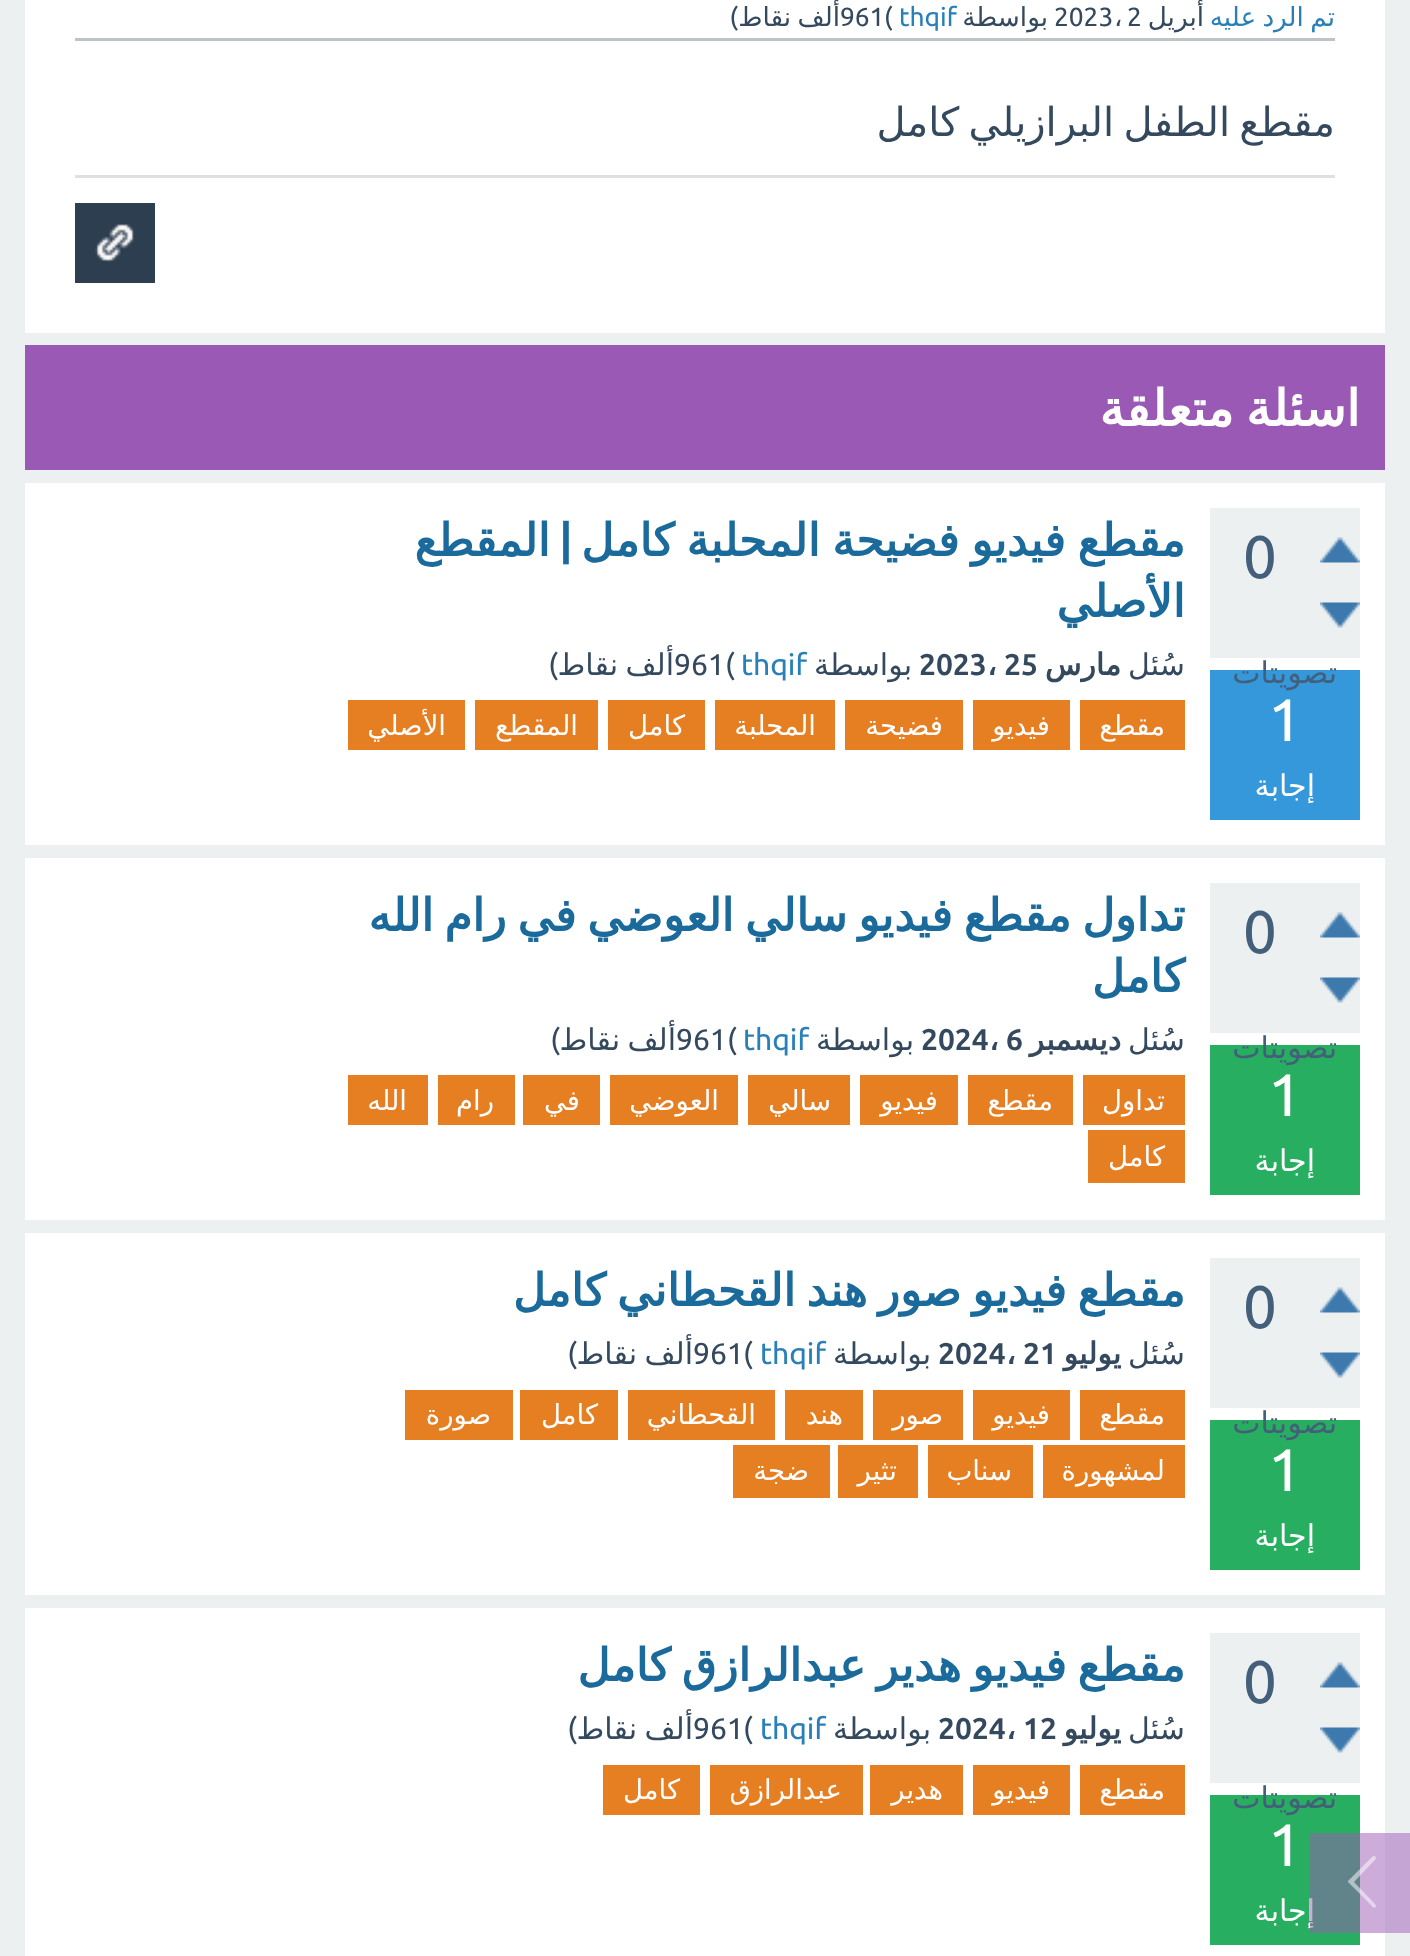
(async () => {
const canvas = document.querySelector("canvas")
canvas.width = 1410
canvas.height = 1956
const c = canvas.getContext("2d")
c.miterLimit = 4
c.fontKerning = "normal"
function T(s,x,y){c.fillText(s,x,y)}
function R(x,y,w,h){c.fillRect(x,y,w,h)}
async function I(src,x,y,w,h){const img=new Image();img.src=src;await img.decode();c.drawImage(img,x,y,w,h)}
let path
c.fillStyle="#ecf0f1"
R(0,0,1410,1956)
c.fillStyle="#fff"
R(25,0,1360,333)
c.fillStyle="#bdc3c7"
R(75,38,1260,3)
c.wordSpacing="-2px"
c.direction="rtl"
c.font="26.25px DejaVu Sans"
c.fillStyle="#2980b9"
T("تم الرد عليه",1335,26)
c.wordSpacing="0px"
c.fillStyle="#34495e"
T("أبريل",1204,26)
c.direction="ltr"
c.font="26.25px Ubuntu"
T("2",1127,26)
c.font="26.25px DejaVu Sans"
T("،",1114,26)
c.font="26.25px Ubuntu"
T("2023",1054,26)
c.direction="rtl"
c.font="26.25px DejaVu Sans"
T("بواسطة",1048,26)
c.direction="ltr"
c.font="26.25px Ubuntu"
c.fillStyle="#2980b9"
T("thqif",899,26)
c.fillStyle="#34495e"
T("(",884,26)
T("961",840,26)
c.direction="rtl"
c.font="26.25px DejaVu Sans"
T("ألف",840,26)
T("نقاط",791,26)
c.font="26.25px Ubuntu"
T(")",738,26)
c.wordSpacing="-3.5px"
c.font="40px DejaVu Sans"
T("مقطع الطفل البرازيلي كامل",1335,136)
c.fillStyle="#dee1e3"
R(75,175,1260,3)
c.fillStyle="#2c3e50"
R(75,203,80,80)
await I("1.png",95,224,39,39)
c.fillStyle="#9b59b6"
R(25,345,1360,125)
c.wordSpacing="-4px"
c.font="bold 50px DejaVu Sans"
c.fillStyle="#fff"
T("اسئلة متعلقة",1360,426)
R(25,483,1360,362)
c.fillStyle="#ecf0f1"
R(1210,508,150,150)
await I("2.png",1320,537,40,26)
await I("3.png",1320,602,40,26)
c.wordSpacing="0px"
c.direction="ltr"
c.font="60px Ubuntu"
c.fillStyle="#445f7a"
T("0",1243,578)
c.fillStyle="#3498db"
R(1210,670,150,150)
c.direction="rtl"
c.font="30px DejaVu Sans"
c.fillStyle="#445f7a"
T("تصويتات",1337,683)
c.direction="ltr"
c.font="60px Ubuntu"
c.fillStyle="#fff"
T("1",1268,741)
c.direction="rtl"
c.font="30px DejaVu Sans"
T("إجابة",1315,796)
c.wordSpacing="-2.5px"
c.font="bold 45px DejaVu Sans"
c.fillStyle="#1a6a9b"
T("مقطع فيديو فضيحة المحلبة كامل",1185,556)
c.wordSpacing="0px"
c.font="bold 45px Ubuntu"
T("|",573,556)
c.font="bold 45px DejaVu Sans"
T("المقطع",550,556)
T("الأصلي",1185,617)
c.font="30px DejaVu Sans"
c.fillStyle="#34495e"
T("سُئل",1185,675)
c.font="bold 30px DejaVu Sans"
T("مارس",1121,675)
c.direction="ltr"
c.font="bold 30px Ubuntu"
T("25",1004,675)
c.font="bold 30px DejaVu Sans"
T("،",987,675)
c.font="bold 30px Ubuntu"
T("2023",919,675)
c.direction="rtl"
c.font="30px DejaVu Sans"
T("بواسطة",912,675)
c.direction="ltr"
c.font="30px Ubuntu"
c.fillStyle="#2980b9"
T("thqif",741,675)
c.fillStyle="#34495e"
T("(",725,675)
T("961",674,675)
c.direction="rtl"
c.font="30px DejaVu Sans"
T("ألف",674,675)
T("نقاط",618,675)
c.font="30px Ubuntu"
T(")",558,675)
c.fillStyle="#e67e22"
R(1080,700,105,50)
c.font="27.5px DejaVu Sans"
c.fillStyle="#fff"
T("مقطع",1165,735)
c.fillStyle="#e67e22"
R(973,700,97,50)
c.fillStyle="#fff"
T("فيديو",1050,735)
c.fillStyle="#e67e22"
R(845,700,118,50)
c.fillStyle="#fff"
T("فضيحة",943,735)
c.fillStyle="#e67e22"
R(715,700,120,50)
c.fillStyle="#fff"
T("المحلبة",816,735)
c.fillStyle="#e67e22"
R(608,700,97,50)
c.fillStyle="#fff"
T("كامل",685,735)
c.fillStyle="#e67e22"
R(475,700,123,50)
c.fillStyle="#fff"
T("المقطع",578,735)
c.fillStyle="#e67e22"
R(348,700,117,50)
c.fillStyle="#fff"
T("الأصلي",446,735)
R(25,858,1360,362)
c.fillStyle="#ecf0f1"
R(1210,883,150,150)
await I("4.png",1320,912,40,26)
await I("3.png",1320,977,40,26)
c.direction="ltr"
c.font="60px Ubuntu"
c.fillStyle="#445f7a"
T("0",1243,953)
c.fillStyle="#27ae60"
R(1210,1045,150,150)
c.direction="rtl"
c.font="30px DejaVu Sans"
c.fillStyle="#445f7a"
T("تصويتات",1337,1058)
c.direction="ltr"
c.font="60px Ubuntu"
c.fillStyle="#fff"
T("1",1268,1116)
c.direction="rtl"
c.font="30px DejaVu Sans"
T("إجابة",1315,1171)
c.wordSpacing="-3.5px"
c.font="bold 45px DejaVu Sans"
c.fillStyle="#1a6a9b"
T("تداول مقطع فيديو سالي العوضي في رام الله",1185,931)
c.wordSpacing="0px"
T("كامل",1185,992)
c.font="30px DejaVu Sans"
c.fillStyle="#34495e"
T("سُئل",1185,1050)
c.font="bold 30px DejaVu Sans"
T("ديسمبر",1121,1050)
c.direction="ltr"
c.font="bold 30px Ubuntu"
T("6",1006,1050)
c.font="bold 30px DejaVu Sans"
T("،",989,1050)
c.font="bold 30px Ubuntu"
T("2024",921,1050)
c.direction="rtl"
c.font="30px DejaVu Sans"
T("بواسطة",914,1050)
c.direction="ltr"
c.font="30px Ubuntu"
c.fillStyle="#2980b9"
T("thqif",743,1050)
c.fillStyle="#34495e"
T("(",727,1050)
T("961",676,1050)
c.direction="rtl"
c.font="30px DejaVu Sans"
T("ألف",676,1050)
T("نقاط",620,1050)
c.font="30px Ubuntu"
T(")",560,1050)
c.fillStyle="#e67e22"
R(1083,1075,102,50)
c.font="27.5px DejaVu Sans"
c.fillStyle="#fff"
T("تداول",1165,1110)
c.fillStyle="#e67e22"
R(968,1075,105,50)
c.fillStyle="#fff"
T("مقطع",1053,1110)
c.fillStyle="#e67e22"
R(860,1075,98,50)
c.fillStyle="#fff"
T("فيديو",938,1110)
c.fillStyle="#e67e22"
R(748,1075,102,50)
c.fillStyle="#fff"
T("سالي",831,1110)
c.fillStyle="#e67e22"
R(610,1075,128,50)
c.fillStyle="#fff"
T("العوضي",719,1110)
c.fillStyle="#e67e22"
R(523,1075,77,50)
c.fillStyle="#fff"
T("في",580,1110)
c.fillStyle="#e67e22"
R(438,1075,77,50)
c.fillStyle="#fff"
T("رام",494,1110)
c.fillStyle="#e67e22"
R(348,1075,80,50)
c.fillStyle="#fff"
T("الله",407,1110)
c.fillStyle="#e67e22"
R(1088,1130,97,53)
c.fillStyle="#fff"
T("كامل",1165,1166)
R(25,1233,1360,362)
c.fillStyle="#ecf0f1"
R(1210,1258,150,150)
await I("4.png",1320,1287,40,26)
await I("3.png",1320,1352,40,26)
c.direction="ltr"
c.font="60px Ubuntu"
c.fillStyle="#445f7a"
T("0",1243,1328)
c.fillStyle="#27ae60"
R(1210,1420,150,150)
c.direction="rtl"
c.font="30px DejaVu Sans"
c.fillStyle="#445f7a"
T("تصويتات",1337,1433)
c.direction="ltr"
c.font="60px Ubuntu"
c.fillStyle="#fff"
T("1",1268,1491)
c.direction="rtl"
c.font="30px DejaVu Sans"
T("إجابة",1315,1546)
c.wordSpacing="-3.5px"
c.font="bold 45px DejaVu Sans"
c.fillStyle="#1a6a9b"
T("مقطع فيديو صور هند القحطاني كامل",1185,1306)
c.wordSpacing="0px"
c.font="30px DejaVu Sans"
c.fillStyle="#34495e"
T("سُئل",1185,1364)
c.font="bold 30px DejaVu Sans"
T("يوليو",1121,1364)
c.direction="ltr"
c.font="bold 30px Ubuntu"
T("21",1023,1364)
c.font="bold 30px DejaVu Sans"
T("،",1006,1364)
c.font="bold 30px Ubuntu"
T("2024",938,1364)
c.direction="rtl"
c.font="30px DejaVu Sans"
T("بواسطة",931,1364)
c.direction="ltr"
c.font="30px Ubuntu"
c.fillStyle="#2980b9"
T("thqif",760,1364)
c.fillStyle="#34495e"
T("(",743,1364)
T("961",693,1364)
c.direction="rtl"
c.font="30px DejaVu Sans"
T("ألف",693,1364)
T("نقاط",637,1364)
c.font="30px Ubuntu"
T(")",577,1364)
c.fillStyle="#e67e22"
R(1080,1390,105,50)
c.font="27.5px DejaVu Sans"
c.fillStyle="#fff"
T("مقطع",1165,1424)
c.fillStyle="#e67e22"
R(973,1390,97,50)
c.fillStyle="#fff"
T("فيديو",1050,1424)
c.fillStyle="#e67e22"
R(873,1390,90,50)
c.fillStyle="#fff"
T("صور",943,1424)
c.fillStyle="#e67e22"
R(785,1390,78,50)
c.fillStyle="#fff"
T("هند",843,1424)
c.fillStyle="#e67e22"
R(628,1390,147,50)
c.fillStyle="#fff"
T("القحطاني",756,1424)
c.fillStyle="#e67e22"
R(520,1390,98,50)
c.fillStyle="#fff"
T("كامل",598,1424)
c.fillStyle="#e67e22"
R(405,1390,108,50)
c.fillStyle="#fff"
T("صورة",491,1424)
c.fillStyle="#e67e22"
R(1043,1445,142,53)
c.fillStyle="#fff"
T("لمشهورة",1165,1480)
c.fillStyle="#e67e22"
R(928,1445,105,53)
c.fillStyle="#fff"
T("سناب",1012,1480)
c.fillStyle="#e67e22"
R(838,1445,80,53)
c.fillStyle="#fff"
T("تثير",897,1480)
c.fillStyle="#e67e22"
R(733,1445,97,53)
c.fillStyle="#fff"
T("ضجة",809,1480)
R(25,1608,1360,348)
c.fillStyle="#ecf0f1"
R(1210,1633,150,150)
await I("4.png",1320,1662,40,26)
await I("3.png",1320,1727,40,26)
c.direction="ltr"
c.font="60px Ubuntu"
c.fillStyle="#445f7a"
T("0",1243,1703)
c.fillStyle="#27ae60"
R(1210,1795,150,150)
c.direction="rtl"
c.font="30px DejaVu Sans"
c.fillStyle="#445f7a"
T("تصويتات",1337,1808)
c.direction="ltr"
c.font="60px Ubuntu"
c.fillStyle="#fff"
T("1",1268,1866)
c.direction="rtl"
c.font="30px DejaVu Sans"
T("إجابة",1315,1921)
c.wordSpacing="-3.5px"
c.font="bold 45px DejaVu Sans"
c.fillStyle="#1a6a9b"
T("مقطع فيديو هدير عبدالرازق كامل",1185,1681)
c.wordSpacing="0px"
c.font="30px DejaVu Sans"
c.fillStyle="#34495e"
T("سُئل",1185,1739)
c.font="bold 30px DejaVu Sans"
T("يوليو",1121,1739)
c.direction="ltr"
c.font="bold 30px Ubuntu"
T("12",1023,1739)
c.font="bold 30px DejaVu Sans"
T("،",1006,1739)
c.font="bold 30px Ubuntu"
T("2024",938,1739)
c.direction="rtl"
c.font="30px DejaVu Sans"
T("بواسطة",931,1739)
c.direction="ltr"
c.font="30px Ubuntu"
c.fillStyle="#2980b9"
T("thqif",760,1739)
c.fillStyle="#34495e"
T("(",743,1739)
T("961",693,1739)
c.direction="rtl"
c.font="30px DejaVu Sans"
T("ألف",693,1739)
T("نقاط",637,1739)
c.font="30px Ubuntu"
T(")",577,1739)
c.fillStyle="#e67e22"
R(1080,1765,105,50)
c.font="27.5px DejaVu Sans"
c.fillStyle="#fff"
T("مقطع",1165,1799)
c.fillStyle="#e67e22"
R(973,1765,97,50)
c.fillStyle="#fff"
T("فيديو",1050,1799)
c.fillStyle="#e67e22"
R(870,1765,93,50)
c.fillStyle="#fff"
T("هدير",943,1799)
c.fillStyle="#e67e22"
R(710,1765,153,50)
c.fillStyle="#fff"
T("عبدالرازق",842,1799)
c.fillStyle="#e67e22"
R(603,1765,97,50)
c.fillStyle="#fff"
T("كامل",680,1799)
c.fillStyle="#9b59b680"
R(1310,1833,100,100)
c.fillStyle="#ffffff80"
path = new Path2D("M1375 1904l1 2c-1 5-7-3-7-3l-21-21v-1l25-25h1c5 1-1 6-2 7l-18 19z")
c.fill(path)
})()
